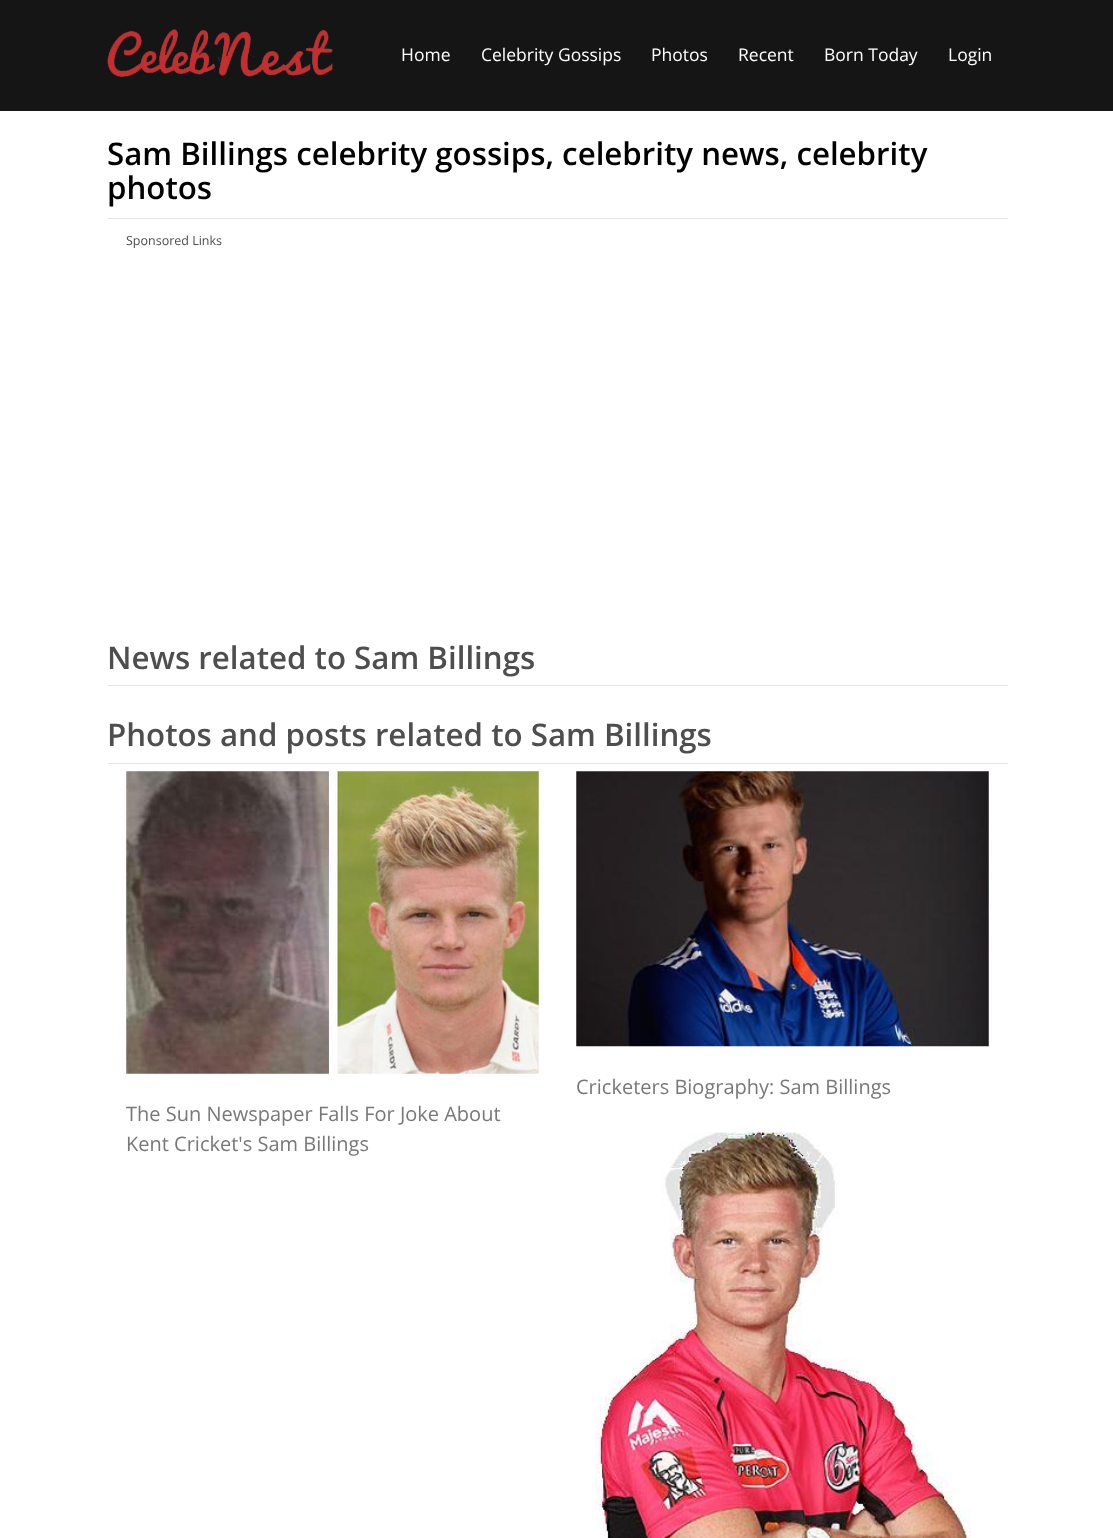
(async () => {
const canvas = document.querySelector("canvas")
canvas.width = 1113
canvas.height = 1538
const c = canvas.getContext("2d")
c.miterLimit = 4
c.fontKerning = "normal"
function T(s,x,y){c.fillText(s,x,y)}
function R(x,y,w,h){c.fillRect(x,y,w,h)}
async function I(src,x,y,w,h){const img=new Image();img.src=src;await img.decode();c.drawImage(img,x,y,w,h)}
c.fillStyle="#fff"
R(0,0,1113,1538)
c.fillStyle="#151515"
R(0,0,1113,111)
await I("1.png",107,29,226,48)
c.font="17.5px Open Sans"
c.fillStyle="#fff"
T("Home",401,61)
T("Celebrity Gossips",481,61)
T("Photos",651,61)
T("Recent",738,61)
T("Born Today",824,61)
T("Login",948,61)
c.font="600 31.25px Open Sans"
c.fillStyle="#000"
T("Sam Billings celebrity gossips, celebrity news, celebrity",107,165)
T("photos",107,199)
c.fillStyle="#e5e5e5"
R(108,218,900,1)
c.font="12.5px Open Sans"
c.fillStyle="#4e4e4e"
T("Sponsored Links",126,245)
c.font="600 31.25px Open Sans"
T("News related to Sam Billings",107,669)
c.fillStyle="#e5e5e5"
R(108,685,900,1)
c.fillStyle="#4e4e4e"
T("Photos and posts related to Sam Billings",107,746)
c.fillStyle="#e5e5e5"
R(108,763,900,1)
await I("2.png",576,771,413,276)
c.font="20px Open Sans"
c.fillStyle="#787878"
T("Cricketers Biography: Sam Billings",576,1094)
await I("3.png",126,771,413,303)
T("The Sun Newspaper Falls For Joke About",126,1121)
T("Kent Cricket's Sam Billings",126,1151)
await I("4.png",595,1132,376,406)
})()
